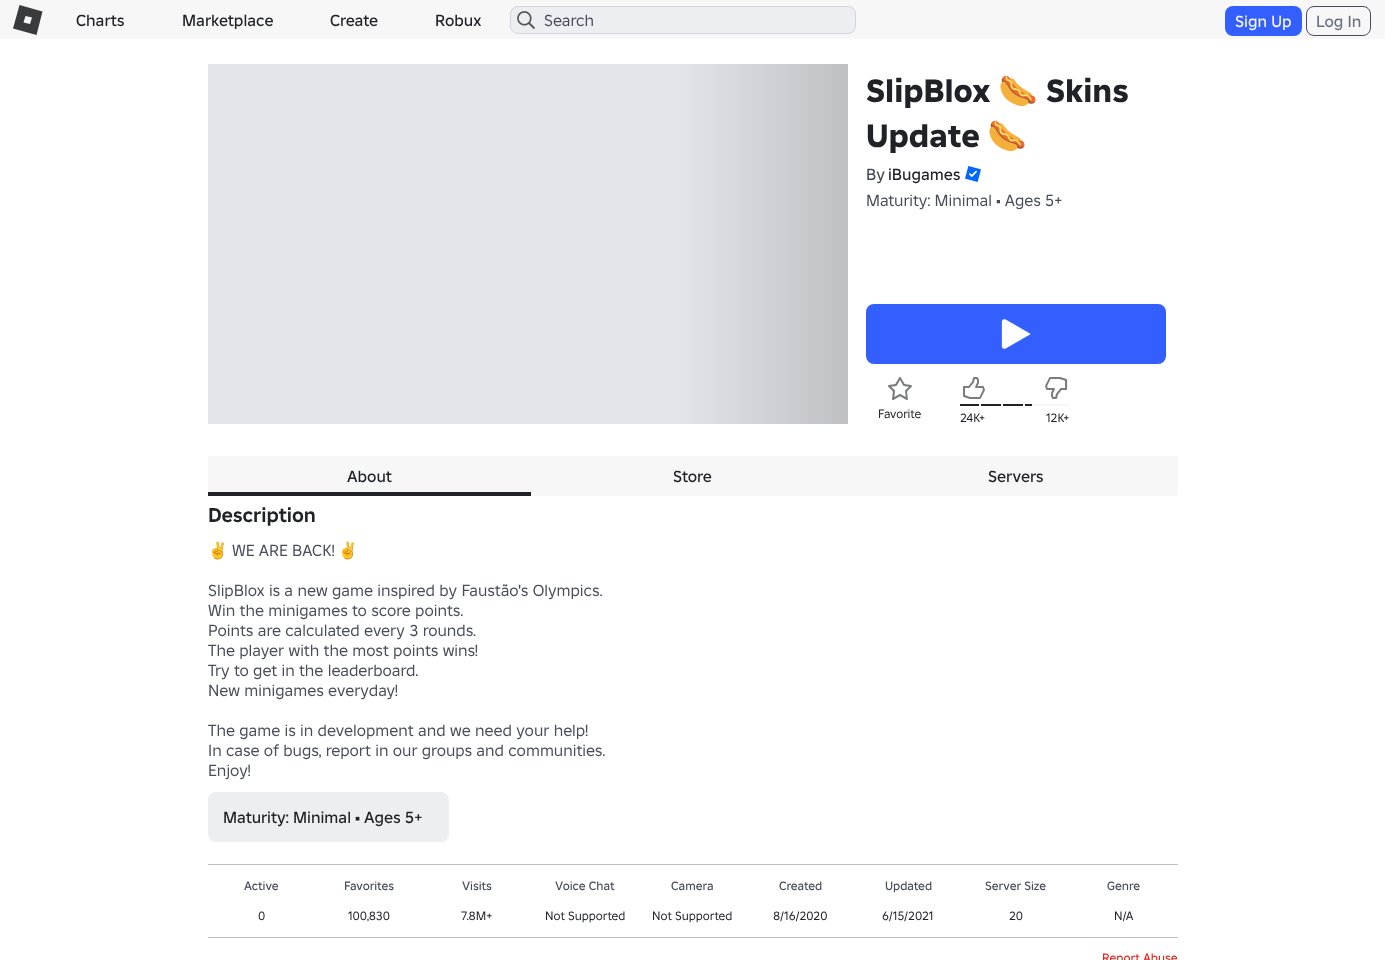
(async () => {
const canvas = document.querySelector("canvas")
canvas.width = 1400
canvas.height = 960
const c = canvas.getContext("2d")
c.miterLimit = 4
c.fontKerning = "normal"
function T(s,x,y){c.fillText(s,x,y)}
function R(x,y,w,h){c.fillRect(x,y,w,h)}
function Q(x,y,w,h,r){c.beginPath();c.roundRect(x,y,w,h,r);c.fill()}
async function I(src,x,y,w,h){const img=new Image();img.src=src;await img.decode();c.drawImage(img,x,y,w,h)}
let gradient, path
c.fillStyle="#fff"
R(0,0,1400,960)
c.fillStyle="#f7f7f8"
R(0,0,1385,39)
c.fillStyle="#393b3d"
path = new Path2D("M19.5 5l-6.5 23.5l23.5 6.5l6-23.5zm10.5 19l-6.5-1.5l2-6.5l6.5 1.5z")
c.fill(path)
c.font="500 16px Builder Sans"
c.fillStyle="#202227"
T("Charts",76,26)
T("Marketplace",182,26)
T("Create",330,26)
T("Robux",435,26)
c.fillStyle="#fff"
Q(510,6,346,28,8)
c.fillStyle="#1b254b14"
Q(510,6,346,28,8)
c.beginPath()
c.roundRect(510.5,6.5,345,27,7.5)
c.strokeStyle="#1b254b1f"
c.stroke()
await I("1.png",517,11,18,18)
c.font="16px Builder Sans"
c.fillStyle="#494d5a"
T("Search",544,26)
c.fillStyle="#335fff"
Q(1225,6,77,30,8)
c.font="500 16px Builder Sans"
c.fillStyle="#f7f7f8"
T("Sign Up",1235,27)
c.beginPath()
c.roundRect(1306.5,6.5,64,29,7.5)
c.strokeStyle="#494d5a"
c.stroke()
c.fillStyle="#6a6f81"
T("Log In",1316,27)
c.fillStyle="#e4e5ea"
R(208,64,468,360)
gradient = c.createLinearGradient(676,244,1316,244)
gradient.addColorStop(0,"#e4e5ea")
gradient.addColorStop(.5,"#a0a0a4")
gradient.addColorStop(1,"#e4e5ea")
c.fillStyle = gradient
R(676,64,172,360)
c.font="800 32px Builder Sans"
c.fillStyle="#202227"
T("SlipBlox",866,102)
c.font="bold 32px Noto Color Emoji"
T("🌭",998,102)
c.font="800 32px Builder Sans"
T("Skins",1046,102)
T("Update",866,147)
c.font="bold 32px Noto Color Emoji"
T("🌭",987,147)
c.font="500 16px Builder Sans"
c.fillStyle="#494d5a"
T("By",866,180)
c.fillStyle="#202227"
T("iBugames",888,180)
await I("2.png",965,166,16,16)
c.font="16px Builder Sans"
c.fillStyle="#494d5a"
T("Maturity: Minimal • Ages 5+",866,206)
c.fillStyle="#335fff"
Q(866,304,300,60,8)
await I("3.png",1001,319,30,30)
await I("4.png",888,377,24,23)
c.font="12px Builder Sans"
c.fillStyle="#202227"
T("Favorite",878,418)
await I("5.png",963,377,22,22)
await I("6.png",1045,377,23,22)
R(960,404,72,2)
c.fillStyle="#f7f7f8"
R(979,404,2,2)
R(1001,404,2,2)
R(1023,404,2,2)
R(1032,404,38,2)
c.fillStyle="#202227"
T("24K+",960,422)
T("12K+",1046,422)
c.fillStyle="#f7f7f8"
R(208,456,970,39)
c.fillStyle="#202227"
R(208,492,323,4)
c.font="500 16px Builder Sans"
T("About",347,482)
c.fillStyle="#f7f7f8"
R(531,495,646,1)
c.fillStyle="#202227"
T("Store",673,482)
T("Servers",988,482)
c.font="bold 20px Builder Sans"
T("Description",208,522)
c.save()
c.beginPath()
c.rect(208,540,970,252)
c.clip()
c.font="16px Noto Color Emoji"
c.fillStyle="#494d5a"
T("✌️",208,556)
c.restore()
c.font="16px Builder Sans"
c.fillStyle="#494d5a"
T("WE ARE BACK!",232,556)
c.font="16px Noto Color Emoji"
T("✌️",338,556)
c.font="16px Builder Sans"
T("SlipBlox is a new game inspired by Faustão's Olympics.",208,596)
T("Win the minigames to score points.",208,616)
T("Points are calculated every 3 rounds.",208,636)
T("The player with the most points wins!",208,656)
T("Try to get in the leaderboard.",208,676)
T("New minigames everyday!",208,696)
T("The game is in development and we need your help!",208,736)
T("In case of bugs, report in our groups and communities.",208,756)
T("Enjoy!",208,776)
c.fillStyle="#edeef1"
Q(208,792,241,50,8)
c.font="500 16px Builder Sans"
c.fillStyle="#202227"
T("Maturity: Minimal • Ages 5+",223,823)
c.fillStyle="#bcbec8"
R(208,864,970,1)
R(208,937,970,1)
c.font="500 12px Builder Sans"
c.fillStyle="#494d5a"
T("Active",244,890)
c.font="12px Builder Sans"
c.fillStyle="#202227"
T("0",258,920)
c.font="500 12px Builder Sans"
c.fillStyle="#494d5a"
T("Favorites",344,890)
c.font="12px Builder Sans"
c.fillStyle="#202227"
T("100,830",348,920)
c.font="500 12px Builder Sans"
c.fillStyle="#494d5a"
T("Visits",462,890)
c.font="12px Builder Sans"
c.fillStyle="#202227"
T("7.8M+",461,920)
c.font="500 12px Builder Sans"
c.fillStyle="#494d5a"
T("Voice Chat",555,890)
c.font="12px Builder Sans"
c.fillStyle="#202227"
T("Not Supported",545,920)
c.font="500 12px Builder Sans"
c.fillStyle="#494d5a"
T("Camera",671,890)
c.font="12px Builder Sans"
c.fillStyle="#202227"
T("Not Supported",652,920)
c.font="500 12px Builder Sans"
c.fillStyle="#494d5a"
T("Created",779,890)
c.font="12px Builder Sans"
c.fillStyle="#202227"
T("8/16/2020",773,920)
c.font="500 12px Builder Sans"
c.fillStyle="#494d5a"
T("Updated",885,890)
c.font="12px Builder Sans"
c.fillStyle="#202227"
T("6/15/2021",882,920)
c.font="500 12px Builder Sans"
c.fillStyle="#494d5a"
T("Server Size",985,890)
c.font="12px Builder Sans"
c.fillStyle="#202227"
T("20",1009,920)
c.font="500 12px Builder Sans"
c.fillStyle="#494d5a"
T("Genre",1107,890)
c.font="12px Builder Sans"
c.fillStyle="#202227"
T("N/A",1114,920)
c.font="500 12px Builder Sans"
c.fillStyle="#df281f"
T("Report Abuse",1102,962)
})()
